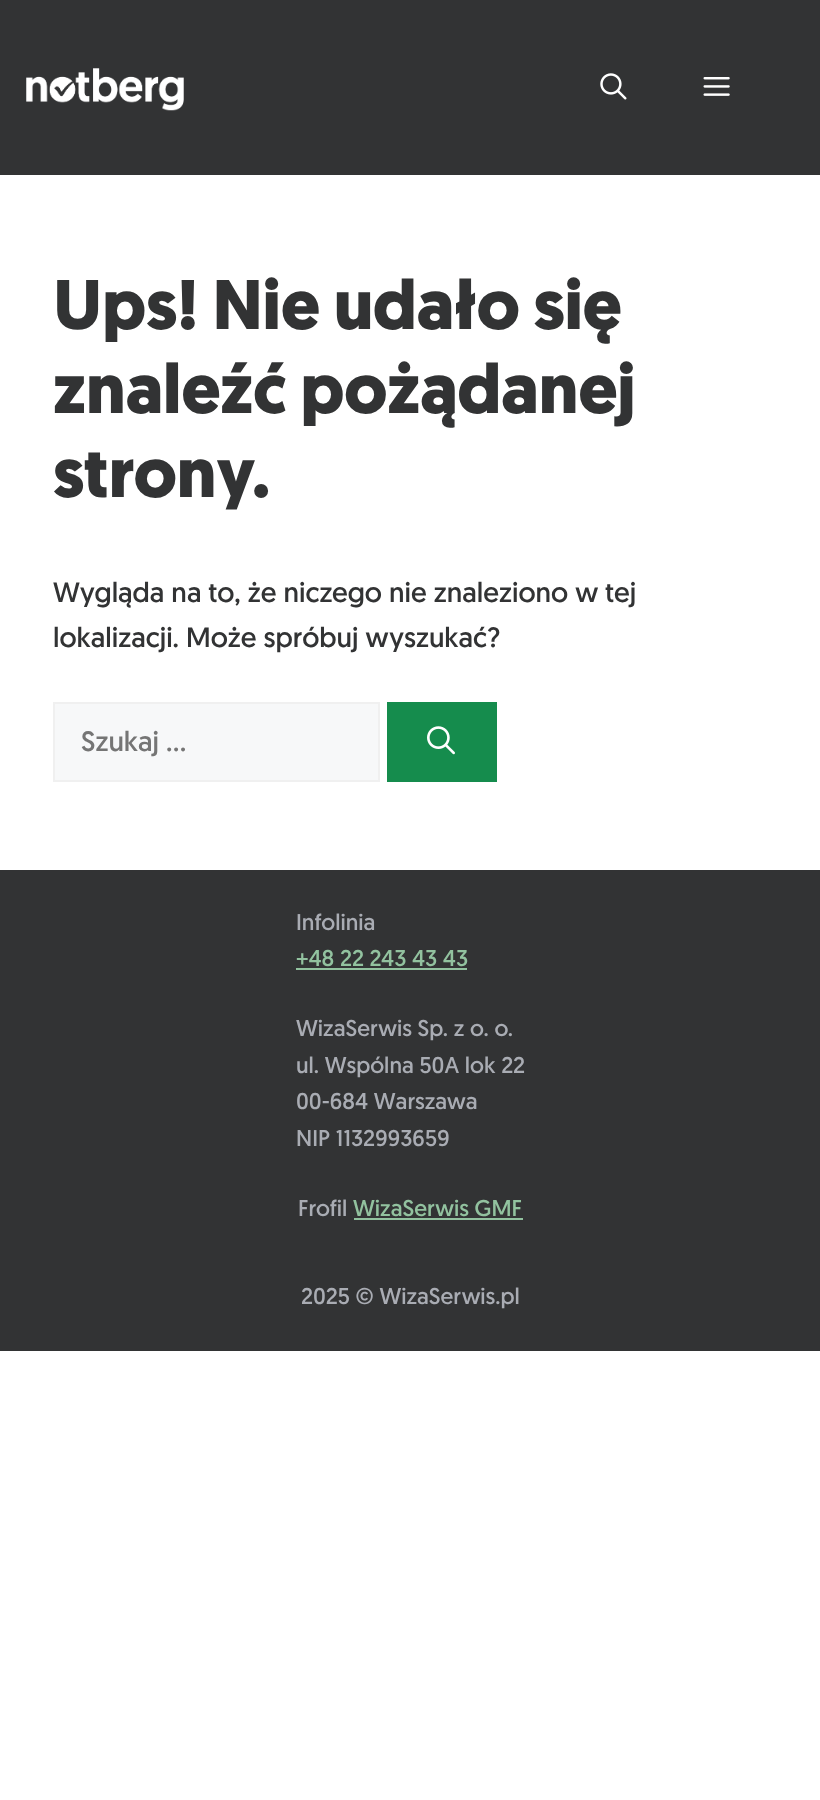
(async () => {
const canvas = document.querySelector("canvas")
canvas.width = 820
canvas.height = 1800
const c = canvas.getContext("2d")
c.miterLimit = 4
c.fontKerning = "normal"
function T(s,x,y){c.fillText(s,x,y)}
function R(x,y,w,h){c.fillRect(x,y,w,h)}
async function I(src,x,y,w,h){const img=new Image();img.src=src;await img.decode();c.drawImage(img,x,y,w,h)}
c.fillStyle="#fff"
R(0,0,820,1800)
c.fillStyle="#323334"
R(0,0,820,175)
await I("1.png",26,68,158,43)
await I("2.png",600,73,27,27)
await I("3.png",703,77,27,19)
c.font="bold 70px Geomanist"
T("Ups! Nie udało się",53,329)
T("znaleźć pożądanej",53,413)
T("strony.",53,497)
c.font="28px Geomanist"
T("Wygląda na to, że niczego nie znaleziono w tej",53,602)
T("lokalizacji. Może spróbuj wyszukać?",53,647)
c.fillStyle="#f7f8f9"
c.beginPath()
c.rect(54,703,325,78)
c.fill()
c.strokeStyle="#f0f0f0"
c.lineWidth=2
c.stroke()
c.fillStyle="#757575"
T("Szukaj …",81,751)
c.fillStyle="#158c4d"
R(387,702,110,80)
await I("4.png",427,726,28,29)
c.fillStyle="#323334"
R(0,870,820,481)
c.font="22.75px Geomanist"
c.fillStyle="#a9acb3"
T("Infolinia",296,930)
c.fillStyle="#92c29f"
T("+48 22 243 43 43",296,966)
R(296,968,171,2)
c.fillStyle="#a9acb3"
T("WizaSerwis Sp. z o. o.",296,1036)
T("ul. Wspólna 50A lok 22",296,1073)
T("00-684 Warszawa",296,1109)
T("NIP 1132993659",296,1146)
T("Frofil",298,1216)
c.fillStyle="#92c29f"
T("WizaSerwis GMF",353,1216)
R(354,1218,169,2)
c.fillStyle="#a9acb3"
T("2025 © WizaSerwis.pl",301,1304)
})()
